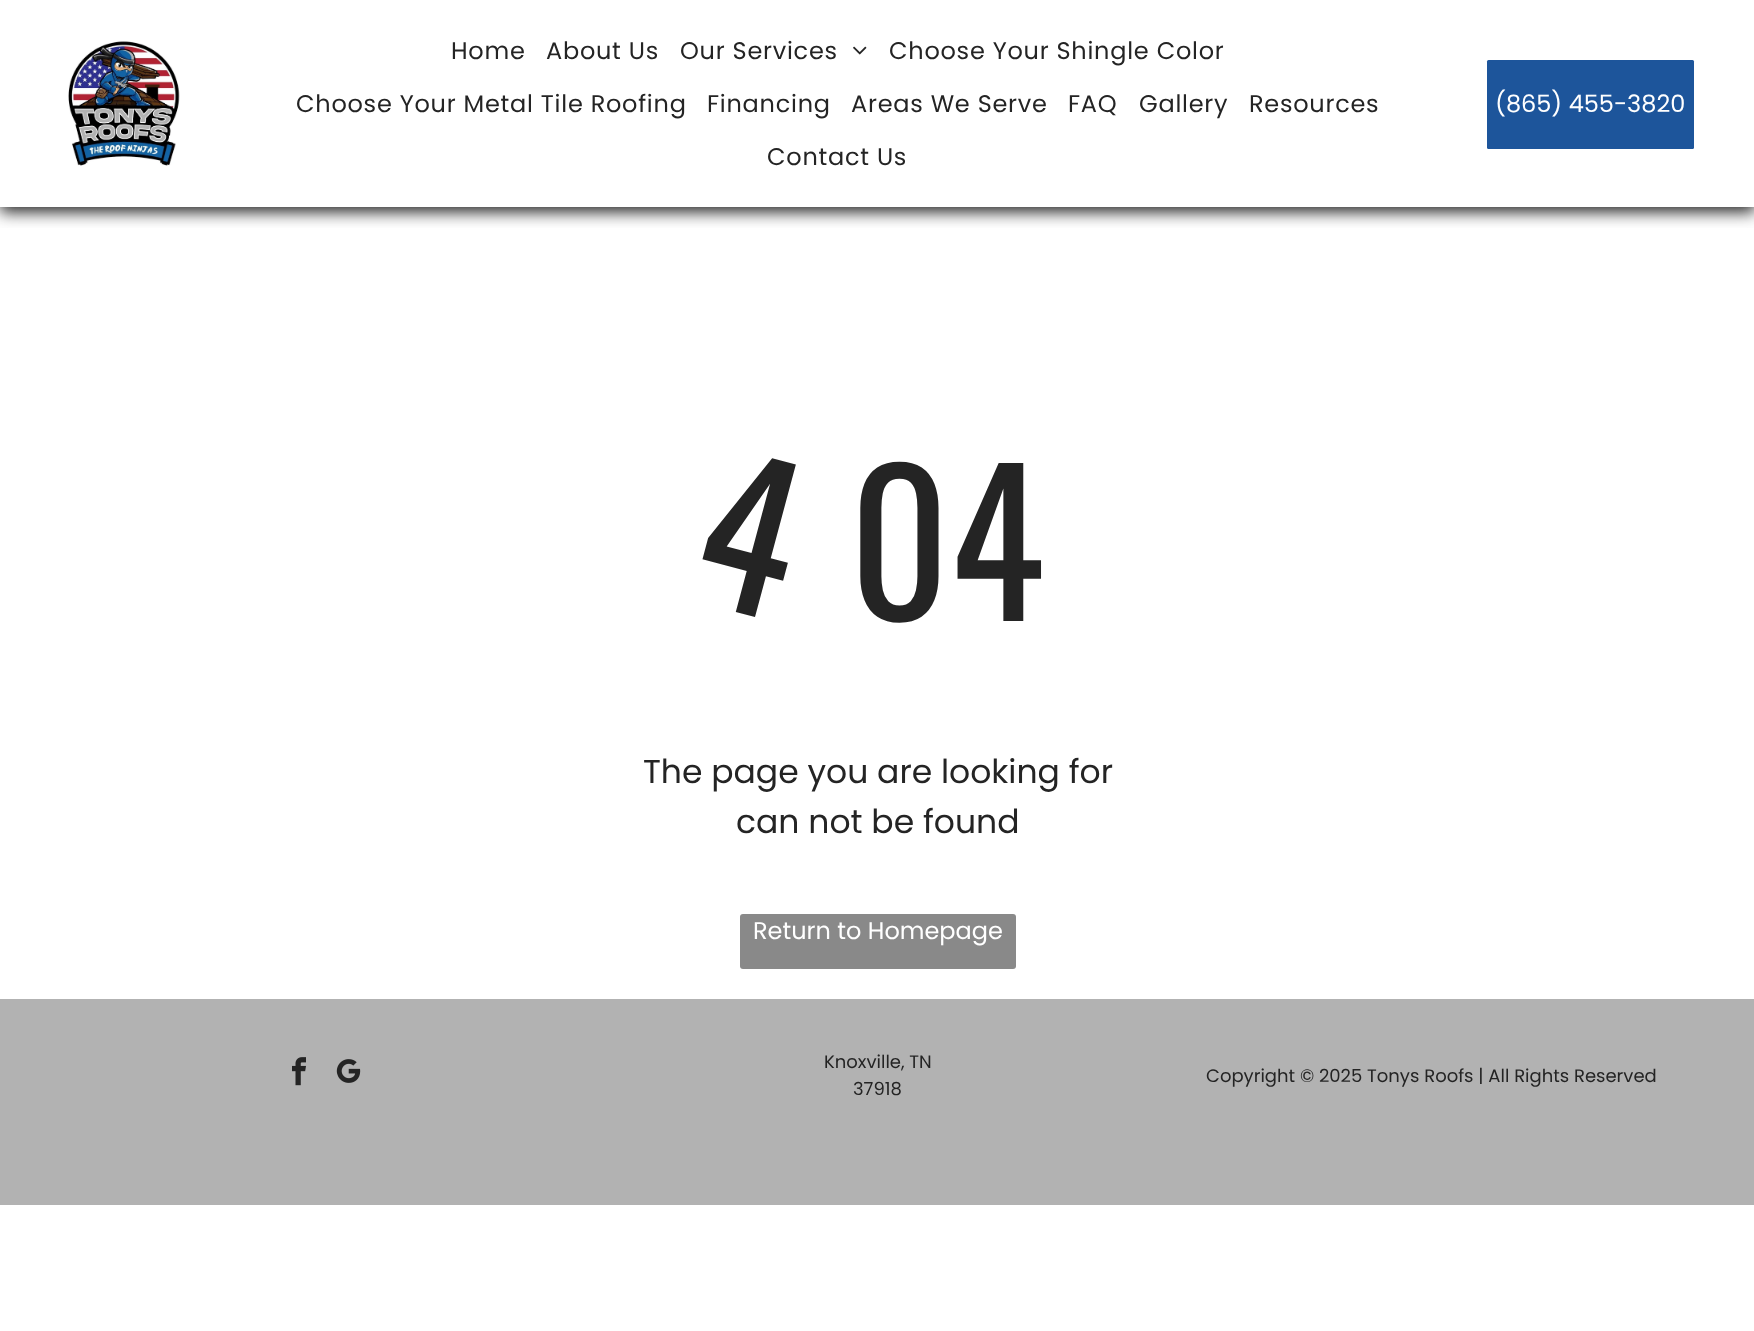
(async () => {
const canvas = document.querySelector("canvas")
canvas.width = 1754
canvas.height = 1331
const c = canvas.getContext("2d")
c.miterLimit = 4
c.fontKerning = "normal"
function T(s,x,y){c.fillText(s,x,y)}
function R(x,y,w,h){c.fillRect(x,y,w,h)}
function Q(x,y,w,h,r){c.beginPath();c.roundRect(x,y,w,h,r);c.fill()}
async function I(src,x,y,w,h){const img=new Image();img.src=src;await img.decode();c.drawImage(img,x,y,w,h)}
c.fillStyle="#fff"
R(0,0,1754,1331)
c.save()
c.beginPath()
c.rect(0,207,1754,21)
c.clip()
c.fillStyle="#242424"
c.filter="blur(8px)"
c.beginPath()
c.rect(0,5,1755,207)
c.fill()
c.filter="none"
c.restore()
await I("1.png",68,41,112,125)
c.letterSpacing="0.75px"
c.font="24px Poppins"
c.fillStyle="#242424"
T("Home",451,59)
T("About Us",546,59)
T("Our Services",680,59)
await I("2.png",853,46,14,9)
T("Choose Your Shingle Color",889,59)
T("Choose Your Metal Tile Roofing",296,112)
T("Financing",707,112)
T("Areas We Serve",851,112)
T("FAQ",1068,112)
T("Gallery",1139,112)
T("Resources",1249,112)
T("Contact Us",767,165)
c.fillStyle="#1d559b"
Q(1487,60,207,89,1.5)
c.letterSpacing="0px"
c.fillStyle="#fff"
T("(865) 455-3820",1495,112)
c.font="195px Oswald"
c.fillStyle="#242424"
c.save()
c.translate(684,598)
c.rotate(15 * Math.PI / 180)
c.fillText("4",0,0)
c.restore()
T("04",849,621)
c.font="33px Poppins"
T("The page you are looking for",643,783)
T("can not be found",736,833)
c.fillStyle="#898989"
Q(740,914,276,55,3)
c.font="24px Poppins"
c.fillStyle="#fff"
T("Return to Homepage",753,939)
c.fillStyle="#b2b2b2"
R(0,999,1754,206)
await I("3.png",292,1057,14,29)
await I("4.png",336,1059,25,24)
c.font="18px Poppins"
c.fillStyle="#242424"
T("Knoxville, TN",824,1068)
T("37918",853,1095)
T("Copyright © 2025 Tonys Roofs | All Rights Reserved",1206,1082)
})()
